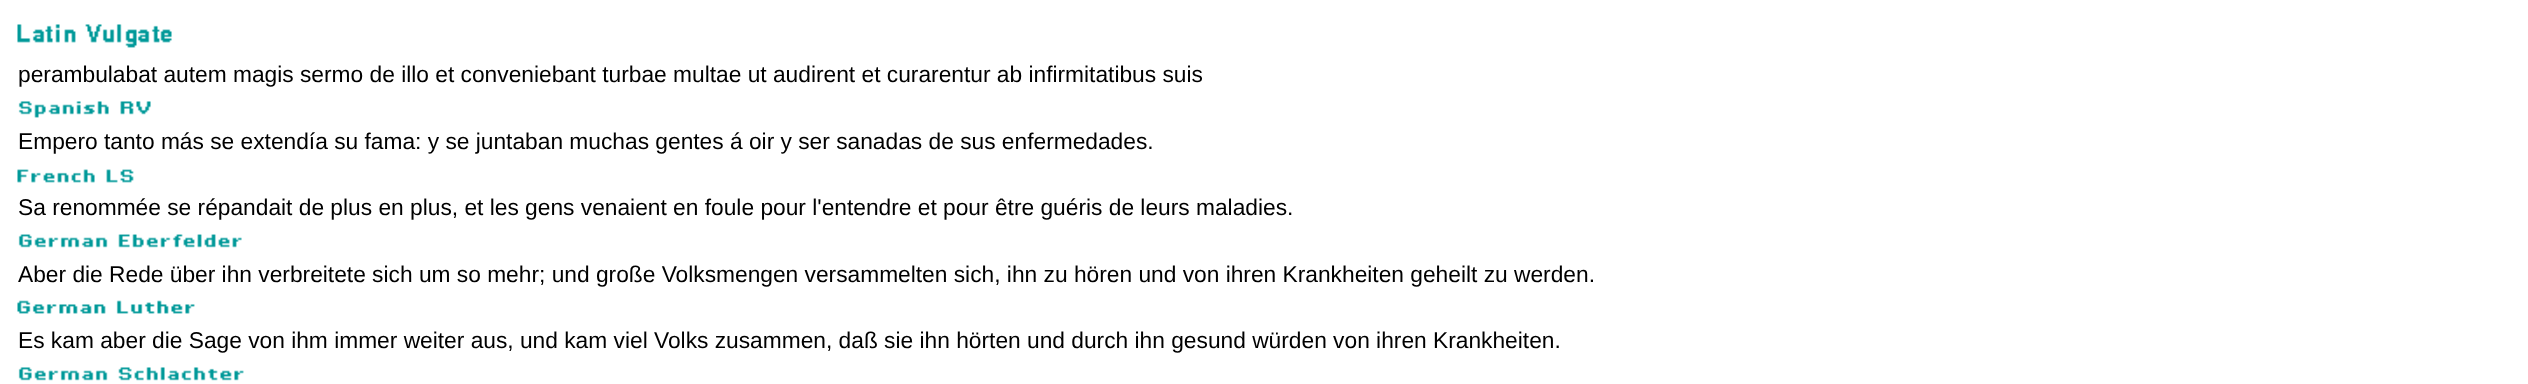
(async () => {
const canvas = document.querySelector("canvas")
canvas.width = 2528
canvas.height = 384
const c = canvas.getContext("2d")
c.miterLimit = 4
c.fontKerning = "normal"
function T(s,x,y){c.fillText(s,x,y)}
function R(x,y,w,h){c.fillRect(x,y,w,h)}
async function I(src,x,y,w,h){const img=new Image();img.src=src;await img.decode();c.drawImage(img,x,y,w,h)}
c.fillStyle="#fff"
R(0,0,2528,384)
await I("1.png",17,24,155,24)
c.font="22.75px Liberation Sans"
c.fillStyle="#000"
T("perambulabat autem magis sermo de illo et conveniebant turbae multae ut audirent et curarentur ab infirmitatibus suis",18,82)
await I("2.png",18,101,133,17)
T("Empero tanto más se extendía su fama: y se juntaban muchas gentes á oir y ser sanadas de sus enfermedades.",18,149)
await I("3.png",17,169,117,14)
T("Sa renommée se répandait de plus en plus, et les gens venaient en foule pour l'entendre et pour être guéris de leurs maladies.",18,215)
await I("4.png",18,234,224,14)
T("Aber die Rede über ihn verbreitete sich um so mehr; und große Volksmengen versammelten sich, ihn zu hören und von ihren Krankheiten geheilt zu werden.",18,282)
await I("5.png",17,300,178,14)
T("Es kam aber die Sage von ihm immer weiter aus, und kam viel Volks zusammen, daß sie ihn hörten und durch ihn gesund würden von ihren Krankheiten.",18,348)
await I("6.png",18,367,226,14)
})()
